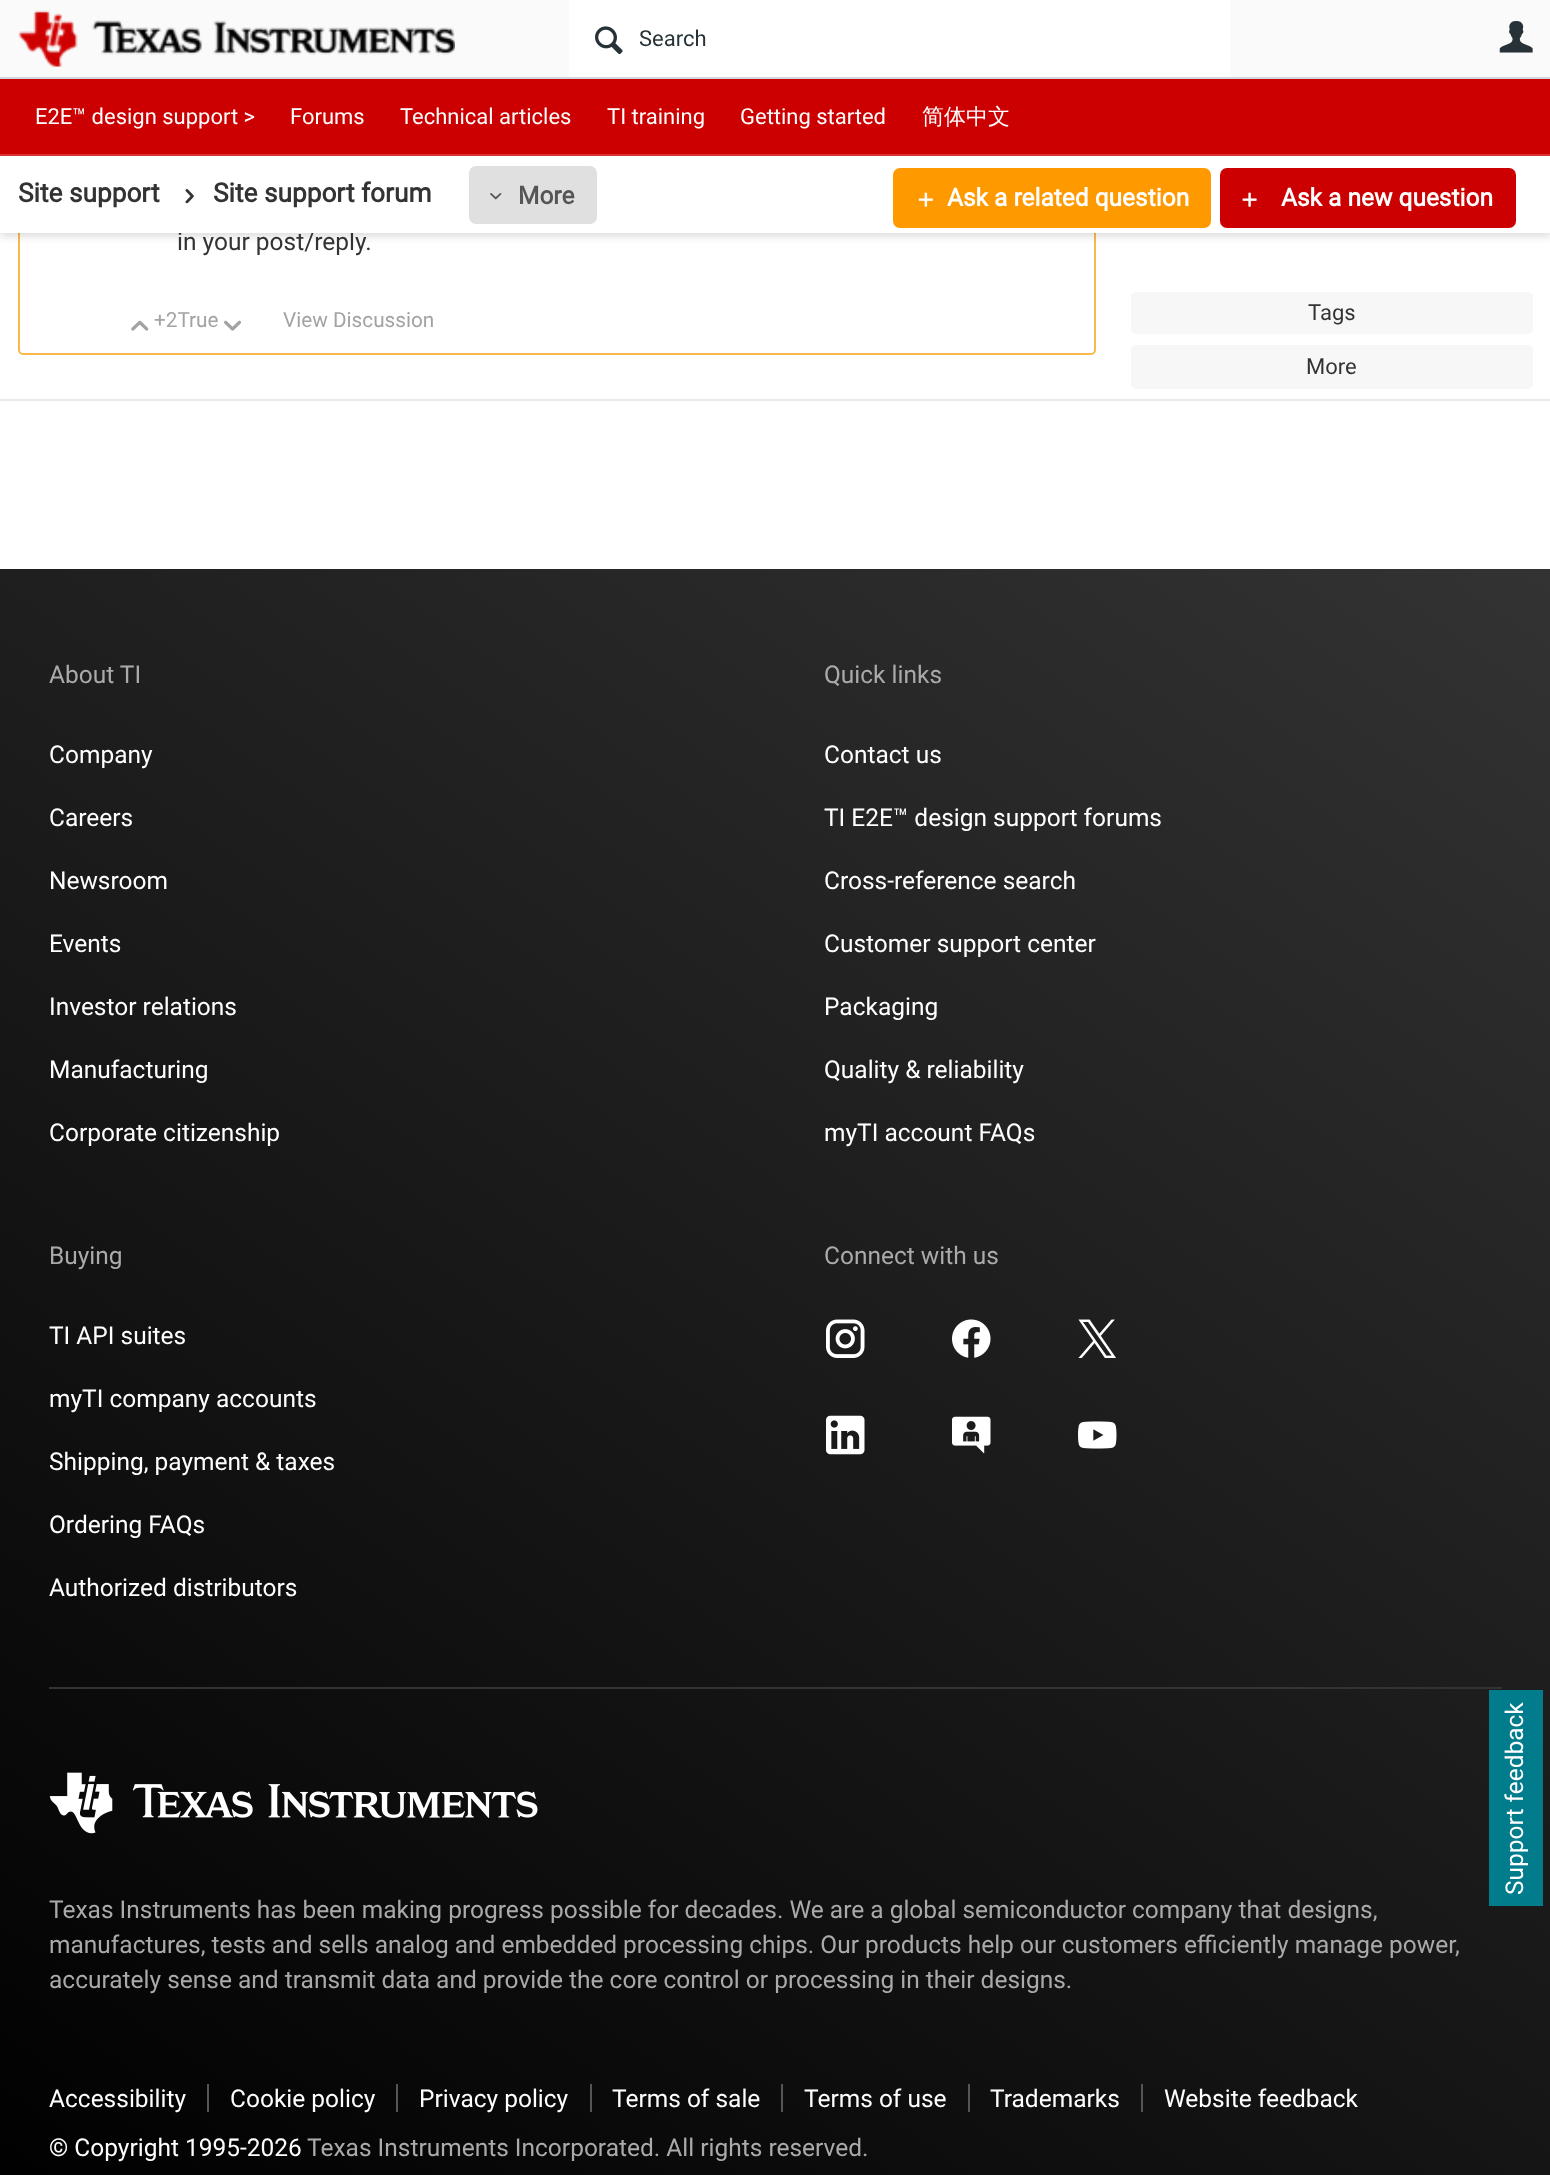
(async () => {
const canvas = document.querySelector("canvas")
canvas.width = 1550
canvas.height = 2175
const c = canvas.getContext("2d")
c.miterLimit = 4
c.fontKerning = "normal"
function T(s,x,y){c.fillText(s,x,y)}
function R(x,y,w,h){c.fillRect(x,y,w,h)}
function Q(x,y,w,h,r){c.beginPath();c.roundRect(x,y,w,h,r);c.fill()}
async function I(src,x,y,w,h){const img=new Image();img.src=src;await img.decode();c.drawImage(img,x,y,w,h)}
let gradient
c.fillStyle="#fff"
R(0,0,1550,2175)
c.beginPath()
c.roundRect(19,-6,1076,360,4)
c.strokeStyle="#fab94d"
c.lineWidth=2
c.stroke()
c.fillStyle="#00000026"
c.filter="blur(4.5px)"
c.beginPath()
c.rect(0,4,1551,232)
c.fill()
c.filter="none"
c.font="24.5px Roboto"
c.fillStyle="#333"
T("in your post/reply.",177,250)
c.fillStyle="#fff"
R(0,156,1550,77)
c.fillStyle="#fafafa"
R(0,0,1550,77)
c.fillStyle="#cfd8dc"
R(0,77,1550,2)
await I("1.png",18,10,437,57)
c.fillStyle="#fff"
R(569,0,661,77)
await I("2.png",595,26,28,29)
c.font="22px Roboto"
c.fillStyle="#263238"
T("Search",639,46)
await I("3.png",1499,21,34,32)
c.fillStyle="#c00"
R(0,79,1550,75)
c.fillStyle="#d63333"
R(0,154,1550,2)
c.fillStyle="#fff"
T("E2E™ design support >",35,124)
T("Forums",290,124)
T("Technical articles",400,124)
T("TI training",607,124)
T("Getting started",740,124)
c.font="500 22px WenQuanYi Zen Hei"
T("简体中文",922,124)
c.font="bold 26.25px Roboto"
c.fillStyle="#333"
T("Site support",18,202)
await I("4.png",185,189,9,15)
T("Site support forum",213,202)
c.fillStyle="#e0e0e0"
Q(469,166,128,58,7)
await I("5.png",490,193,12,7)
c.font="bold 24.5px Roboto"
c.fillStyle="#555"
T("More",518,204)
c.fillStyle="#f90"
Q(893,168,318,60,7)
await I("6.png",918,192,15,15)
c.fillStyle="#fff"
T("Ask a related question",947,206)
c.fillStyle="#c00"
Q(1220,168,296,60,7)
await I("7.png",1242,192,15,15)
c.fillStyle="#fff"
T("Ask a new question",1281,206)
await I("8.png",131,320,18,11)
c.font="20.75px Roboto"
c.fillStyle="#a3a3a3"
T("+2True",154,327)
await I("9.png",224,320,17,11)
T("View Discussion",283,327)
c.fillStyle="#f7f7f7"
Q(1131,292,402,42,5)
c.font="22px Roboto"
c.fillStyle="#333"
T("Tags",1308,320)
c.fillStyle="#f7f7f7"
Q(1131,345,402,44,5)
c.fillStyle="#333"
T("More",1306,374)
gradient = c.createLinearGradient(132,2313,1418,476)
gradient.addColorStop(0,"#000")
gradient.addColorStop(1,"#333")
c.fillStyle = gradient
R(0,569,1550,1606)
c.fillStyle="#007c8c"
R(1489,1690,54,216)
c.font="24.5px Roboto"
c.fillStyle="#fff"
c.save()
c.translate(1523,1895)
c.rotate(-90 * Math.PI / 180)
c.fillText("Support feedback",0,0)
c.restore()
c.fillStyle="#e9e9e9"
R(0,399,1550,2)
c.fillStyle="#aaa"
T("About TI",49,683)
c.fillStyle="#fff"
T("Company",49,763)
T("Careers",49,826)
T("Newsroom",49,889)
T("Events",49,952)
T("Investor relations",49,1015)
T("Manufacturing",49,1078)
T("Corporate citizenship",49,1141)
c.fillStyle="#aaa"
T("Quick links",824,683)
c.fillStyle="#fff"
T("Contact us",824,763)
T("TI E2E™ design support forums",824,826)
T("Cross-reference search",824,889)
T("Customer support center",824,952)
T("Packaging",824,1015)
T("Quality & reliability",824,1078)
T("myTI account FAQs",824,1141)
c.fillStyle="#aaa"
T("Buying",49,1264)
c.fillStyle="#fff"
T("TI API suites",49,1344)
T("myTI company accounts",49,1407)
T("Shipping, payment & taxes",49,1470)
T("Ordering FAQs",49,1533)
T("Authorized distributors",49,1596)
c.fillStyle="#aaa"
T("Connect with us",824,1264)
await I("10.png",826,1319,39,39)
await I("11.png",952,1319,39,39)
await I("12.png",1078,1319,38,39)
await I("13.png",826,1415,39,40)
await I("14.png",952,1416,39,38)
await I("15.png",1078,1421,39,28)
c.fillStyle="#333"
R(49,1687,1453,2)
await I("16.png",49,1772,489,62)
c.fillStyle="#aaa"
T("Texas Instruments has been making progress possible for decades. We are a global semiconductor company that designs,",49,1918)
T("manufactures, tests and sells analog and embedded processing chips. Our products help our customers efficiently manage power,",49,1953)
T("accurately sense and transmit data and provide the core control or processing in their designs.",49,1988)
c.fillStyle="#fff"
T("Accessibility",49,2107)
T("Cookie policy",230,2107)
c.fillStyle="#555"
R(207,2084,2,28)
c.fillStyle="#fff"
T("Privacy policy",419,2107)
c.fillStyle="#555"
R(396,2084,2,28)
c.fillStyle="#fff"
T("Terms of sale",612,2107)
c.fillStyle="#555"
R(590,2084,2,28)
c.fillStyle="#fff"
T("Terms of use",804,2107)
c.fillStyle="#555"
R(781,2084,2,28)
c.fillStyle="#fff"
T("Trademarks",990,2107)
c.fillStyle="#555"
R(968,2084,2,28)
c.fillStyle="#fff"
T("Website feedback",1164,2107)
c.fillStyle="#555"
R(1141,2084,2,28)
c.fillStyle="#fff"
T("© Copyright 1995-2026",49,2156)
c.fillStyle="#aaa"
T("Texas Instruments Incorporated. All rights reserved.",307,2156)
})()
